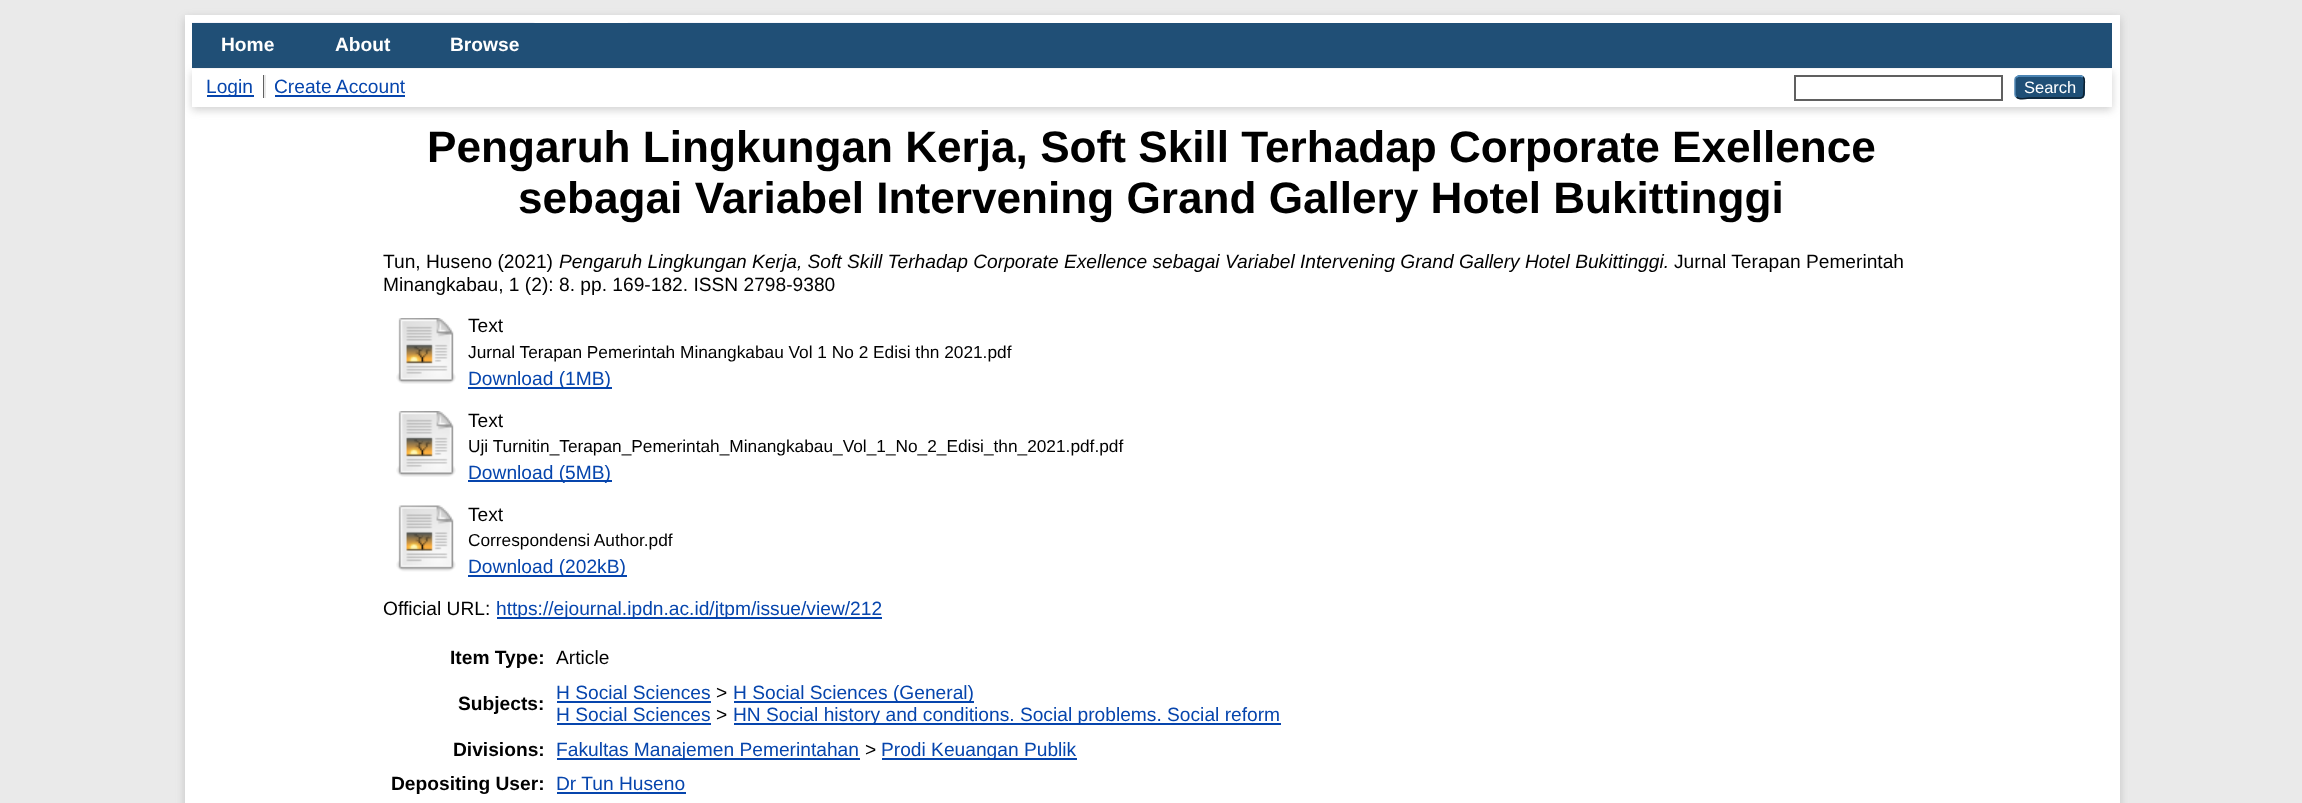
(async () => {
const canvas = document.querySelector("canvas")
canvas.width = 2302
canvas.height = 803
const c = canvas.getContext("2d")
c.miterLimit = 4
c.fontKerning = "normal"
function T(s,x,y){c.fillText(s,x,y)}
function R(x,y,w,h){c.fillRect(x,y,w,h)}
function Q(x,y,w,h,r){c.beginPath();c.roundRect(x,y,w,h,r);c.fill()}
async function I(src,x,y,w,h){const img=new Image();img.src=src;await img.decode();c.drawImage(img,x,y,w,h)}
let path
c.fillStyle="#eaeaea"
R(0,0,2302,803)
c.fillStyle="#6464644d"
c.filter="blur(4.5px)"
c.beginPath()
c.rect(185,18,1935,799)
c.fill()
c.filter="none"
c.fillStyle="#fff"
R(185,15,1935,788)
await I("1.png",192,22,848,1)
c.fillStyle="#204f76"
R(192,23,1920,45)
c.font="bold 19.2px Liberation Sans"
c.fillStyle="#fff"
T("Home",221,51)
T("About",335,51)
T("Browse",450,51)
c.fillStyle="#6464644d"
c.filter="blur(4.5px)"
c.beginPath()
c.rect(192,72,1920,38)
c.fill()
c.filter="none"
c.fillStyle="#fff"
R(192,69,1920,38)
c.fillStyle="#0645ad"
R(207,95,47,2)
c.font="19.2px Liberation Sans"
T("Login",206,93)
c.fillStyle="#606060"
R(263,75,1,23)
c.fillStyle="#0645ad"
T("Create Account",274,93)
c.fillStyle="#e8e8e8"
R(264,75,2,23)
c.fillStyle="#0645ad"
R(275,95,130,2)
c.strokeStyle="#606060"
c.lineWidth=2
c.strokeRect(1795,76,207,24)
c.fillStyle="#1f4f76"
Q(2015,75,70,24,5)
path = new Path2D("M2016.5 77l2-1h62.5l2 1")
c.strokeStyle="#5b97c7"
c.lineWidth=1.5
c.stroke(path)
path = new Path2D("M2083 77c2.5 2 1 7 1 10c0 13 .5 11-14 11h-41c0 0-10 2-12.5-1")
c.strokeStyle="#0d2131"
c.stroke(path)
path = new Path2D("M2016.5 97c-1-.5-1.5-1.5-1.5-2.5v-15c0-1 .5-2 1.5-2.5")
c.strokeStyle="#5287b3"
c.stroke(path)
c.font="16.5px Liberation Sans"
c.fillStyle="#fff"
T("Search",2024,93)
c.font="bold 44.15px Liberation Sans"
c.fillStyle="#000"
T("Pengaruh Lingkungan Kerja, Soft Skill Terhadap Corporate Exellence",427,162)
T("sebagai Variabel Intervening Grand Gallery Hotel Bukittinggi",518,213)
c.font="19.2px Liberation Sans"
T("Tun, Huseno (2021)",383,268)
c.font="italic 19.2px Liberation Sans"
T("Pengaruh Lingkungan Kerja, Soft Skill Terhadap Corporate Exellence sebagai Variabel Intervening Grand Gallery Hotel Bukittinggi.",559,268)
c.font="19.2px Liberation Sans"
T("Jurnal Terapan Pemerintah",1674,268)
T("Minangkabau, 1 (2): 8. pp. 169-182. ISSN 2798-9380",383,291)
await I("2.png",396,318,60,66)
T("Text",468,332)
c.font="17.3px Liberation Sans"
T("Jurnal Terapan Pemerintah Minangkabau Vol 1 No 2 Edisi thn 2021.pdf",468,358)
c.fillStyle="#0645ad"
R(468,387,144,2)
c.font="19.2px Liberation Sans"
T("Download (1MB)",468,385)
await I("2.png",396,411,60,66)
c.fillStyle="#000"
T("Text",468,427)
c.font="17.3px Liberation Sans"
T("Uji Turnitin_Terapan_Pemerintah_Minangkabau_Vol_1_No_2_Edisi_thn_2021.pdf.pdf",468,452)
c.fillStyle="#0645ad"
R(468,480,144,2)
c.font="19.2px Liberation Sans"
T("Download (5MB)",468,479)
await I("3.png",396,505,60,67)
c.fillStyle="#000"
T("Text",468,521)
c.font="17.3px Liberation Sans"
T("Correspondensi Author.pdf",468,546)
c.fillStyle="#0645ad"
R(468,575,159,2)
c.font="19.2px Liberation Sans"
T("Download (202kB)",468,573)
c.fillStyle="#000"
T("Official URL:",383,615)
c.fillStyle="#0645ad"
R(497,617,385,2)
T("https://ejournal.ipdn.ac.id/jtpm/issue/view/212",496,615)
c.font="bold 19.2px Liberation Sans"
c.fillStyle="#000"
T("Item Type:",450,664)
c.font="19.2px Liberation Sans"
T("Article",556,664)
c.font="bold 19.2px Liberation Sans"
T("Subjects:",458,710)
c.font="19.2px Liberation Sans"
c.fillStyle="#0645ad"
T("H Social Sciences",556,699)
R(557,701,154,2)
c.fillStyle="#000"
T(">",716,699)
c.fillStyle="#0645ad"
R(734,701,240,2)
T("H Social Sciences (General)",733,699)
T("H Social Sciences",556,721)
R(557,723,154,2)
c.fillStyle="#000"
T(">",716,721)
c.fillStyle="#0645ad"
R(734,723,547,2)
T("HN Social history and conditions. Social problems. Social reform",733,721)
c.font="bold 19.2px Liberation Sans"
c.fillStyle="#000"
T("Divisions:",453,756)
c.fillStyle="#0645ad"
R(557,758,303,2)
c.font="19.2px Liberation Sans"
T("Fakultas Manajemen Pemerintahan",556,756)
c.fillStyle="#000"
T(">",865,756)
c.fillStyle="#0645ad"
R(882,758,195,2)
T("Prodi Keuangan Publik",881,756)
c.font="bold 19.2px Liberation Sans"
c.fillStyle="#000"
T("Depositing User:",391,790)
c.font="19.2px Liberation Sans"
c.fillStyle="#0645ad"
T("Dr Tun Huseno",556,790)
R(557,792,129,2)
})()
